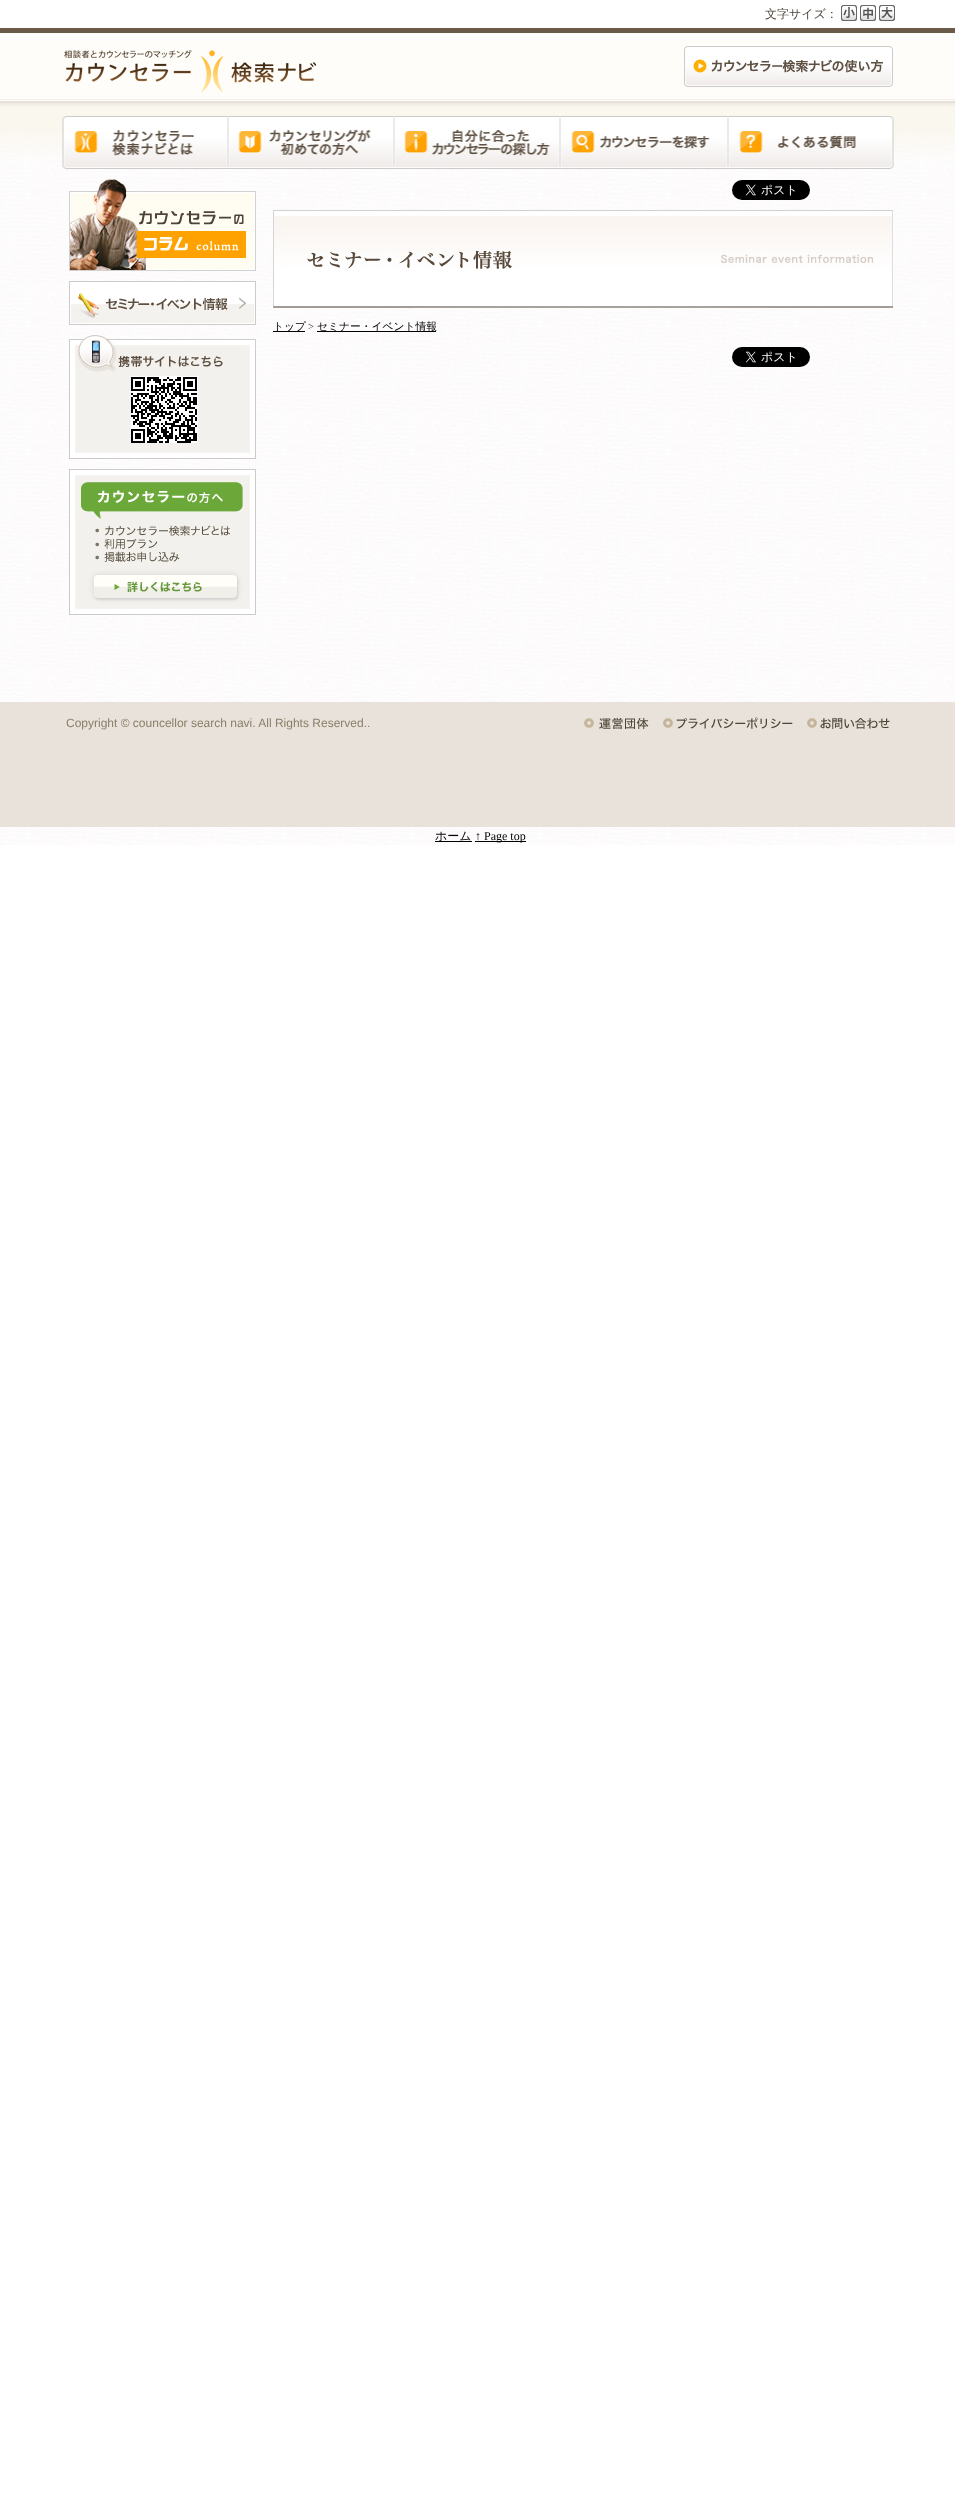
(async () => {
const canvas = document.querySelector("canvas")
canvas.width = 955
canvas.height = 2502
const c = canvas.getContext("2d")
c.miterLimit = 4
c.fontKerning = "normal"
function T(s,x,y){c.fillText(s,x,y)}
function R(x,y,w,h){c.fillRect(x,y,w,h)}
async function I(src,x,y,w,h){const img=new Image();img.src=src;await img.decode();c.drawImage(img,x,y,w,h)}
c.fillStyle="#fff"
R(0,0,955,2502)
c.font="500 12px WenQuanYi Zen Hei"
c.fillStyle="#4d433a"
T("文字サイズ：",765,18)
await I("1.png",841,5,16,16)
await I("2.png",860,5,16,16)
await I("3.png",879,5,16,16)
await I("4.png",0,28,955,817)
await I("5.png",64,50,252,42)
await I("6.png",684,46,209,41)
await I("7.png",69,179,187,92)
await I("8.png",69,281,187,44)
await I("9.png",69,335,187,124)
await I("10.png",69,469,187,146)
await I("11.png",732,180,78,20)
await I("12.png",273,210,620,98)
c.fillStyle="#000"
R(273,331,32,1)
c.font="500 10.75px WenQuanYi Zen Hei"
T("トップ",273,330)
c.font="10.75px Liberation Serif"
c.fillStyle="#4d433a"
T(">",308,330)
c.fillStyle="#000"
R(317,331,119,1)
c.font="500 10.75px WenQuanYi Zen Hei"
T("セミナー・イベント情報",317,330)
await I("13.png",732,347,78,20)
c.fillStyle="#e8e2da"
R(0,702,955,125)
c.font="12px Liberation Sans"
c.fillStyle="#8b7d68"
T("Copyright © councellor search navi. All Rights Reserved..",66,727)
await I("14.png",584,717,65,13)
await I("15.png",663,717,130,12)
await I("16.png",807,718,83,11)
c.fillStyle="#000"
R(435,841,37,1)
c.font="500 12px WenQuanYi Zen Hei"
T("ホーム",435,840)
R(475,841,51,1)
c.font="12px Liberation Serif"
T("↑ Page top",475,840)
})()
